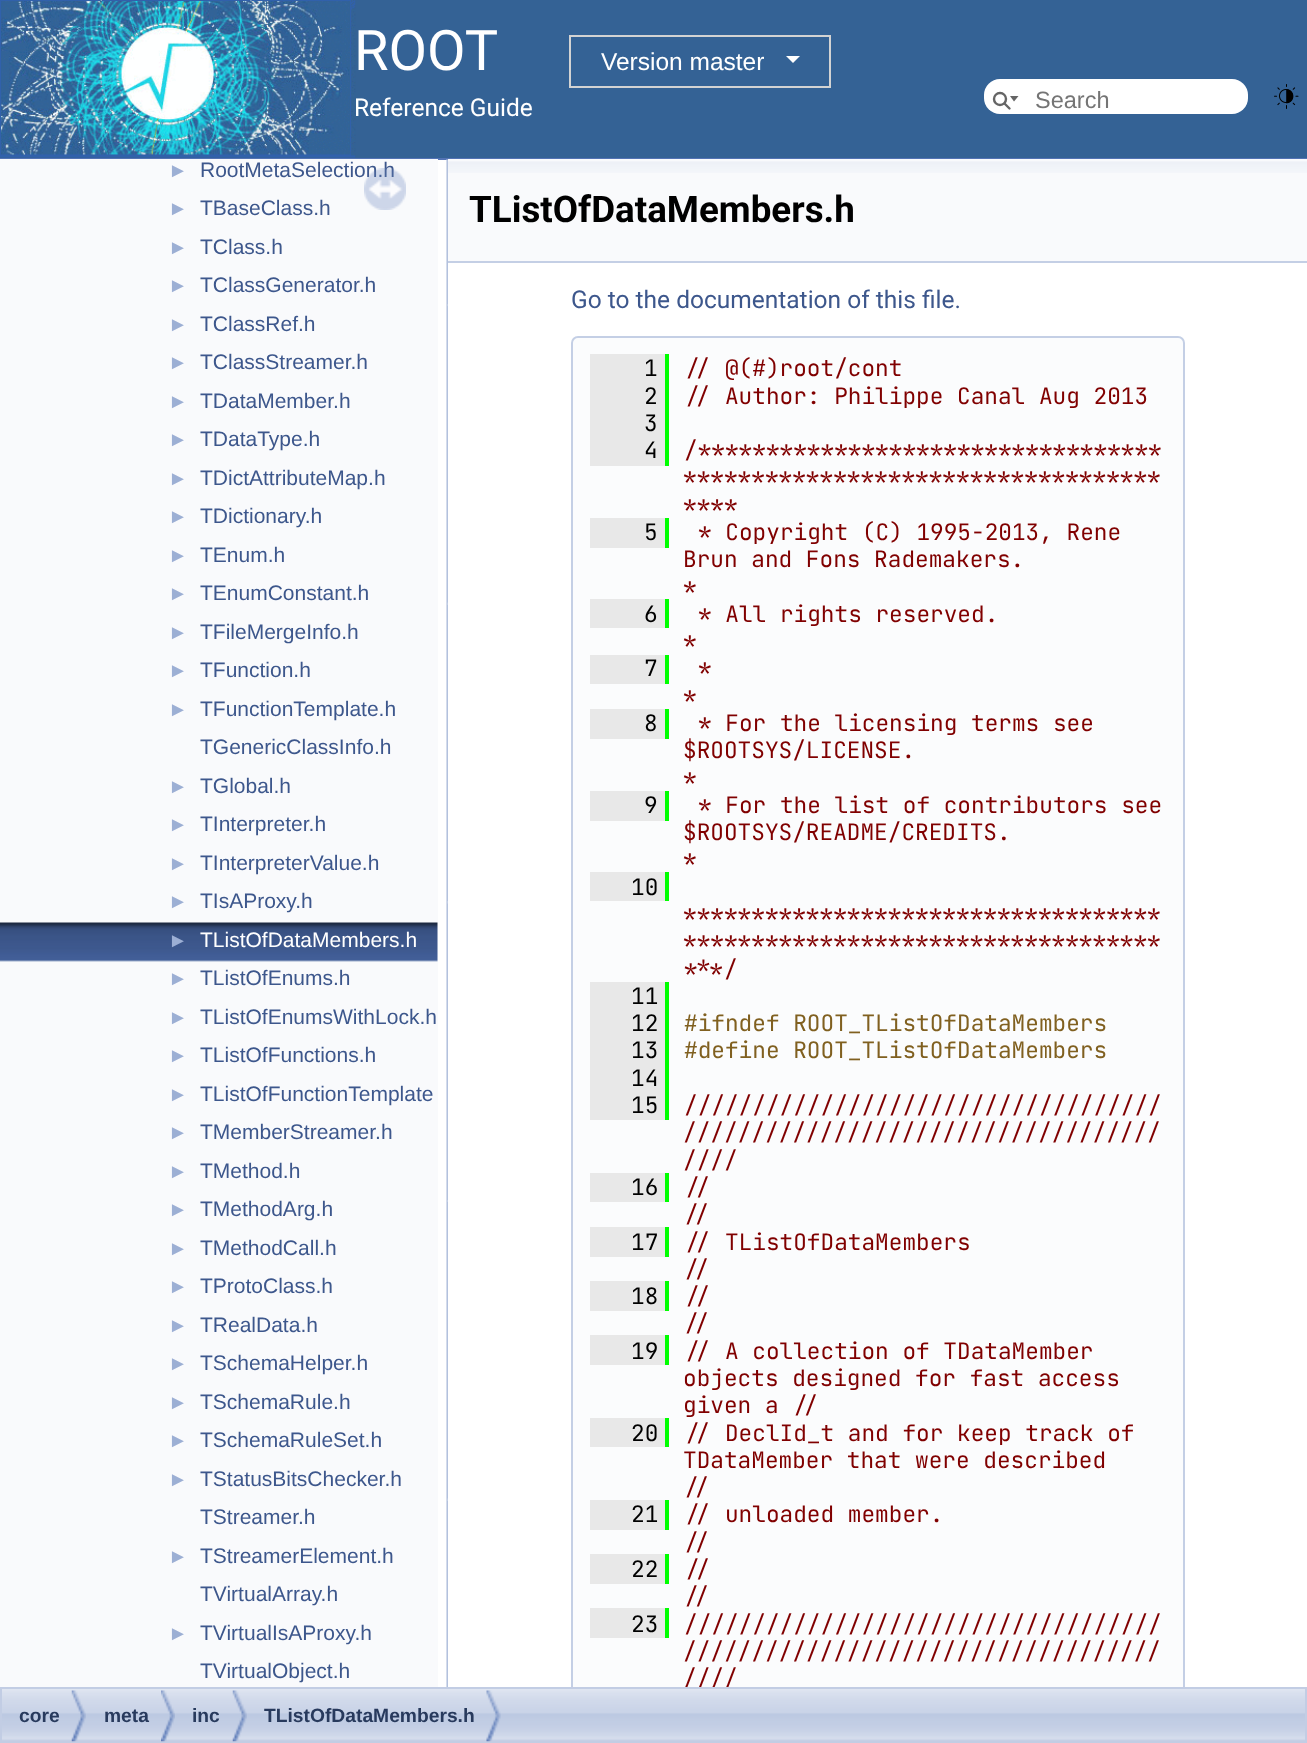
(async () => {
const canvas = document.querySelector("canvas")
canvas.width = 1307
canvas.height = 1743
const c = canvas.getContext("2d")
c.miterLimit = 4
c.fontKerning = "normal"
function T(s,x,y){c.fillText(s,x,y)}
function R(x,y,w,h){c.fillRect(x,y,w,h)}
function Q(x,y,w,h,r){c.beginPath();c.roundRect(x,y,w,h,r);c.fill()}
async function I(src,x,y,w,h){const img=new Image();img.src=src;await img.decode();c.drawImage(img,x,y,w,h)}
let path
c.fillStyle="#fff"
R(0,0,1307,1743)
c.fillStyle="#5373b4"
R(0,158,1307,2)
c.fillStyle="#346295"
R(0,0,1307,158)
await I("1.png",0,0,356,158)
c.font="56px Roboto"
c.fillStyle="#fff"
T("ROOT",354,70)
c.strokeStyle="#d3d3d3"
c.lineWidth=2
c.strokeRect(570,36,260,51)
c.font="24.5px Liberation Sans"
T("Version master",601,70)
path = new Path2D("M786 56h14l-7 7z")
c.fill(path)
c.font="24.5px Roboto"
T("Reference Guide",354,116)
Q(984,79,264,35,16)
c.beginPath()
c.arc(1000,99,6,0,7)
c.strokeStyle="#656565"
c.lineWidth=2.4
c.stroke()
c.fillStyle="#656565"
path = new Path2D("M1010 96l4 5.5l4.5-5.5z")
c.fill(path)
path = new Path2D("M1004.5 103.5l5 5")
c.lineCap="round"
c.stroke(path)
c.font="23.5px Liberation Sans"
c.fillStyle="#757575"
T("Search",1035,108)
await I("2.png",1274,84,25,25)
c.fillStyle="#f9fafc"
R(0,159,438,1528)
c.font="20px Liberation Sans"
c.fillStyle="#9cafd4"
T("►",168,177)
c.font="21px Liberation Sans"
c.fillStyle="#3d578c"
T("RootMetaSelection.h",200,177)
c.font="20px Liberation Sans"
c.fillStyle="#9cafd4"
T("►",168,215)
c.font="21px Liberation Sans"
c.fillStyle="#3d578c"
T("TBaseClass.h",200,215)
c.font="20px Liberation Sans"
c.fillStyle="#9cafd4"
T("►",168,254)
c.font="21px Liberation Sans"
c.fillStyle="#3d578c"
T("TClass.h",200,254)
c.font="20px Liberation Sans"
c.fillStyle="#9cafd4"
T("►",168,292)
c.font="21px Liberation Sans"
c.fillStyle="#3d578c"
T("TClassGenerator.h",200,292)
c.font="20px Liberation Sans"
c.fillStyle="#9cafd4"
T("►",168,331)
c.font="21px Liberation Sans"
c.fillStyle="#3d578c"
T("TClassRef.h",200,331)
c.font="20px Liberation Sans"
c.fillStyle="#9cafd4"
T("►",168,369)
c.font="21px Liberation Sans"
c.fillStyle="#3d578c"
T("TClassStreamer.h",200,369)
c.font="20px Liberation Sans"
c.fillStyle="#9cafd4"
T("►",168,408)
c.font="21px Liberation Sans"
c.fillStyle="#3d578c"
T("TDataMember.h",200,408)
c.font="20px Liberation Sans"
c.fillStyle="#9cafd4"
T("►",168,446)
c.font="21px Liberation Sans"
c.fillStyle="#3d578c"
T("TDataType.h",200,446)
c.font="20px Liberation Sans"
c.fillStyle="#9cafd4"
T("►",168,485)
c.font="21px Liberation Sans"
c.fillStyle="#3d578c"
T("TDictAttributeMap.h",200,485)
c.font="20px Liberation Sans"
c.fillStyle="#9cafd4"
T("►",168,523)
c.font="21px Liberation Sans"
c.fillStyle="#3d578c"
T("TDictionary.h",200,523)
c.font="20px Liberation Sans"
c.fillStyle="#9cafd4"
T("►",168,562)
c.font="21px Liberation Sans"
c.fillStyle="#3d578c"
T("TEnum.h",200,562)
c.font="20px Liberation Sans"
c.fillStyle="#9cafd4"
T("►",168,600)
c.font="21px Liberation Sans"
c.fillStyle="#3d578c"
T("TEnumConstant.h",200,600)
c.font="20px Liberation Sans"
c.fillStyle="#9cafd4"
T("►",168,639)
c.font="21px Liberation Sans"
c.fillStyle="#3d578c"
T("TFileMergeInfo.h",200,639)
c.font="20px Liberation Sans"
c.fillStyle="#9cafd4"
T("►",168,677)
c.font="21px Liberation Sans"
c.fillStyle="#3d578c"
T("TFunction.h",200,677)
c.font="20px Liberation Sans"
c.fillStyle="#9cafd4"
T("►",168,716)
c.font="21px Liberation Sans"
c.fillStyle="#3d578c"
T("TFunctionTemplate.h",200,716)
T("TGenericClassInfo.h",200,754)
c.font="20px Liberation Sans"
c.fillStyle="#9cafd4"
T("►",168,793)
c.font="21px Liberation Sans"
c.fillStyle="#3d578c"
T("TGlobal.h",200,793)
c.font="20px Liberation Sans"
c.fillStyle="#9cafd4"
T("►",168,831)
c.font="21px Liberation Sans"
c.fillStyle="#3d578c"
T("TInterpreter.h",200,831)
c.font="20px Liberation Sans"
c.fillStyle="#9cafd4"
T("►",168,870)
c.font="21px Liberation Sans"
c.fillStyle="#3d578c"
T("TInterpreterValue.h",200,870)
c.font="20px Liberation Sans"
c.fillStyle="#9cafd4"
T("►",168,908)
c.font="21px Liberation Sans"
c.fillStyle="#3d578c"
T("TIsAProxy.h",200,908)
await I("3.png",0,922,438,40)
c.font="20px Liberation Sans"
c.fillStyle="#9cafd4"
T("►",168,947)
c.font="21px Liberation Sans"
c.fillStyle="#fff"
T("TListOfDataMembers.h",200,947)
c.font="20px Liberation Sans"
c.fillStyle="#9cafd4"
T("►",168,985)
c.font="21px Liberation Sans"
c.fillStyle="#3d578c"
T("TListOfEnums.h",200,985)
c.font="20px Liberation Sans"
c.fillStyle="#9cafd4"
T("►",168,1024)
c.font="21px Liberation Sans"
c.fillStyle="#3d578c"
T("TListOfEnumsWithLock.h",200,1024)
c.font="20px Liberation Sans"
c.fillStyle="#9cafd4"
T("►",168,1062)
c.font="21px Liberation Sans"
c.fillStyle="#3d578c"
T("TListOfFunctions.h",200,1062)
c.font="20px Liberation Sans"
c.fillStyle="#9cafd4"
T("►",168,1101)
c.font="21px Liberation Sans"
c.fillStyle="#3d578c"
T("TListOfFunctionTemplate",200,1101)
c.font="20px Liberation Sans"
c.fillStyle="#9cafd4"
T("►",168,1139)
c.font="21px Liberation Sans"
c.fillStyle="#3d578c"
T("TMemberStreamer.h",200,1139)
c.font="20px Liberation Sans"
c.fillStyle="#9cafd4"
T("►",168,1178)
c.font="21px Liberation Sans"
c.fillStyle="#3d578c"
T("TMethod.h",200,1178)
c.font="20px Liberation Sans"
c.fillStyle="#9cafd4"
T("►",168,1216)
c.font="21px Liberation Sans"
c.fillStyle="#3d578c"
T("TMethodArg.h",200,1216)
c.font="20px Liberation Sans"
c.fillStyle="#9cafd4"
T("►",168,1255)
c.font="21px Liberation Sans"
c.fillStyle="#3d578c"
T("TMethodCall.h",200,1255)
c.font="20px Liberation Sans"
c.fillStyle="#9cafd4"
T("►",168,1293)
c.font="21px Liberation Sans"
c.fillStyle="#3d578c"
T("TProtoClass.h",200,1293)
c.font="20px Liberation Sans"
c.fillStyle="#9cafd4"
T("►",168,1332)
c.font="21px Liberation Sans"
c.fillStyle="#3d578c"
T("TRealData.h",200,1332)
c.font="20px Liberation Sans"
c.fillStyle="#9cafd4"
T("►",168,1370)
c.font="21px Liberation Sans"
c.fillStyle="#3d578c"
T("TSchemaHelper.h",200,1370)
c.font="20px Liberation Sans"
c.fillStyle="#9cafd4"
T("►",168,1409)
c.font="21px Liberation Sans"
c.fillStyle="#3d578c"
T("TSchemaRule.h",200,1409)
c.font="20px Liberation Sans"
c.fillStyle="#9cafd4"
T("►",168,1447)
c.font="21px Liberation Sans"
c.fillStyle="#3d578c"
T("TSchemaRuleSet.h",200,1447)
c.font="20px Liberation Sans"
c.fillStyle="#9cafd4"
T("►",168,1486)
c.font="21px Liberation Sans"
c.fillStyle="#3d578c"
T("TStatusBitsChecker.h",200,1486)
T("TStreamer.h",200,1524)
c.font="20px Liberation Sans"
c.fillStyle="#9cafd4"
T("►",168,1563)
c.font="21px Liberation Sans"
c.fillStyle="#3d578c"
T("TStreamerElement.h",200,1563)
T("TVirtualArray.h",200,1601)
c.font="20px Liberation Sans"
c.fillStyle="#9cafd4"
T("►",168,1640)
c.font="21px Liberation Sans"
c.fillStyle="#3d578c"
T("TVirtualIsAProxy.h",200,1640)
T("TVirtualObject.h",200,1678)
await I("4.png",364,168,42,42)
await I("5.png",446,159,2,1528)
c.fillStyle="#f9fafc"
R(448,159,859,102)
await I("6.png",448,161,859,12)
c.fillStyle="#c4cfe5"
R(448,261,859,2)
c.font="bold 36.75px Roboto"
c.fillStyle="#000"
T("TListOfDataMembers.h",469,222)
c.font="24.5px Roboto"
c.fillStyle="#3d578c"
T("Go to the documentation of this file.",571,308)
c.fillStyle="#fbfcfd"
c.beginPath()
c.roundRect(571,336,614,1351,[7,7,0,0])
c.fill()
await I("7.png",2,1689,1303,52)
c.strokeStyle="#c2cde4"
c.lineWidth=2
c.strokeRect(1,1688,1305,54)
c.save()
c.beginPath()
c.rect(448,159,859,1528)
c.clip()
c.beginPath()
c.roundRect(572,337,612,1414,6)
c.strokeStyle="#c4cfe5"
c.stroke()
c.restore()
c.fillStyle="#e8e8e8"
R(590,354,75,112)
c.font="22.75px JetBrains Mono"
c.fillStyle="#000"
T("1",644,376)
c.fillStyle="#0f0"
R(665,354,4,112)
c.fillStyle="#800000"
T("// @(#)root/cont",684,376)
c.fillStyle="#000"
T("2",644,404)
c.fillStyle="#800000"
T("// Author: Philippe Canal Aug 2013",684,404)
c.fillStyle="#000"
T("3",644,431)
T("4",644,458)
c.fillStyle="#800000"
T("/**********************************",684,458)
T("***********************************",683,485)
T("****",683,513)
c.fillStyle="#e8e8e8"
R(590,518,75,30)
c.fillStyle="#000"
T("5",644,540)
c.fillStyle="#0f0"
R(665,518,4,30)
c.fillStyle="#800000"
T("* Copyright (C) 1995-2013, Rene",698,540)
T("Brun and Fons Rademakers.",683,567)
T("*",683,595)
c.fillStyle="#e8e8e8"
R(590,599,75,29)
c.fillStyle="#000"
T("6",644,622)
c.fillStyle="#0f0"
R(665,599,4,29)
c.fillStyle="#800000"
T("* All rights reserved.",698,622)
T("*",683,649)
c.fillStyle="#e8e8e8"
R(590,655,75,29)
c.fillStyle="#000"
T("7",644,676)
c.fillStyle="#0f0"
R(665,655,4,29)
c.fillStyle="#800000"
T("*",698,676)
T("*",683,704)
c.fillStyle="#e8e8e8"
R(590,709,75,30)
c.fillStyle="#000"
T("8",644,731)
c.fillStyle="#0f0"
R(665,709,4,30)
c.fillStyle="#800000"
T("* For the licensing terms see",698,731)
T("$ROOTSYS/LICENSE.",683,758)
T("*",683,786)
c.fillStyle="#e8e8e8"
R(590,791,75,30)
c.fillStyle="#000"
T("9",644,813)
c.fillStyle="#0f0"
R(665,791,4,30)
c.fillStyle="#800000"
T("* For the list of contributors see",698,813)
T("$ROOTSYS/README/CREDITS.",683,840)
T("*",683,867)
c.fillStyle="#e8e8e8"
R(590,872,75,29)
c.fillStyle="#000"
T("10",631,895)
c.fillStyle="#0f0"
R(665,872,4,29)
c.fillStyle="#800000"
T("***********************************",683,922)
T("***********************************",683,949)
T("***/",683,977)
c.fillStyle="#e8e8e8"
R(590,982,75,138)
c.fillStyle="#000"
T("11",631,1004)
c.fillStyle="#0f0"
R(665,982,4,138)
c.fillStyle="#000"
T("12",631,1031)
c.fillStyle="#806020"
T("#ifndef ROOT_TListOfDataMembers",684,1031)
c.fillStyle="#000"
T("13",631,1058)
c.fillStyle="#806020"
T("#define ROOT_TListOfDataMembers",684,1058)
c.fillStyle="#000"
T("14",631,1086)
T("15",631,1113)
c.fillStyle="#800000"
T("///////////////////////////////////",684,1113)
T("///////////////////////////////////",683,1140)
T("////",683,1168)
c.fillStyle="#e8e8e8"
R(590,1173,75,29)
c.fillStyle="#000"
T("16",631,1195)
c.fillStyle="#0f0"
R(665,1173,4,29)
c.fillStyle="#800000"
T("//",684,1195)
T("//",683,1222)
c.fillStyle="#e8e8e8"
R(590,1227,75,30)
c.fillStyle="#000"
T("17",631,1250)
c.fillStyle="#0f0"
R(665,1227,4,30)
c.fillStyle="#800000"
T("// TListOfDataMembers",684,1250)
T("//",683,1277)
c.fillStyle="#e8e8e8"
R(590,1281,75,30)
c.fillStyle="#000"
T("18",631,1304)
c.fillStyle="#0f0"
R(665,1281,4,30)
c.fillStyle="#800000"
T("//",684,1304)
T("//",683,1331)
c.fillStyle="#e8e8e8"
R(590,1335,75,30)
c.fillStyle="#000"
T("19",631,1359)
c.fillStyle="#0f0"
R(665,1335,4,30)
c.fillStyle="#800000"
T("// A collection of TDataMember",684,1359)
T("objects designed for fast access",683,1386)
T("given a //",683,1413)
c.fillStyle="#e8e8e8"
R(590,1418,75,29)
c.fillStyle="#000"
T("20",631,1441)
c.fillStyle="#0f0"
R(665,1418,4,29)
c.fillStyle="#800000"
T("// DeclId_t and for keep track of",684,1441)
T("TDataMember that were described",683,1468)
T("//",683,1495)
c.fillStyle="#e8e8e8"
R(590,1500,75,30)
c.fillStyle="#000"
T("21",631,1522)
c.fillStyle="#0f0"
R(665,1500,4,30)
c.fillStyle="#800000"
T("// unloaded member.",684,1522)
T("//",683,1550)
c.fillStyle="#e8e8e8"
R(590,1554,75,30)
c.fillStyle="#000"
T("22",631,1577)
c.fillStyle="#0f0"
R(665,1554,4,30)
c.fillStyle="#800000"
T("//",684,1577)
T("//",683,1604)
c.fillStyle="#e8e8e8"
R(590,1608,75,30)
c.fillStyle="#000"
T("23",631,1632)
c.fillStyle="#0f0"
R(665,1608,4,30)
c.fillStyle="#800000"
T("///////////////////////////////////",684,1632)
T("///////////////////////////////////",683,1659)
c.save()
c.beginPath()
c.rect(448,159,859,1528)
c.clip()
T("////",683,1686)
c.restore()
await I("8.png",71,1690,15,52)
c.font="bold 19.25px Liberation Sans"
c.fillStyle="#283a5d"
T("core",19,1722)
await I("9.png",161,1690,14,52)
T("meta",104,1722)
await I("8.png",232,1690,15,52)
T("inc",192,1722)
await I("10.png",486,1690,15,52)
T("TListOfDataMembers.h",264,1722)
})()
